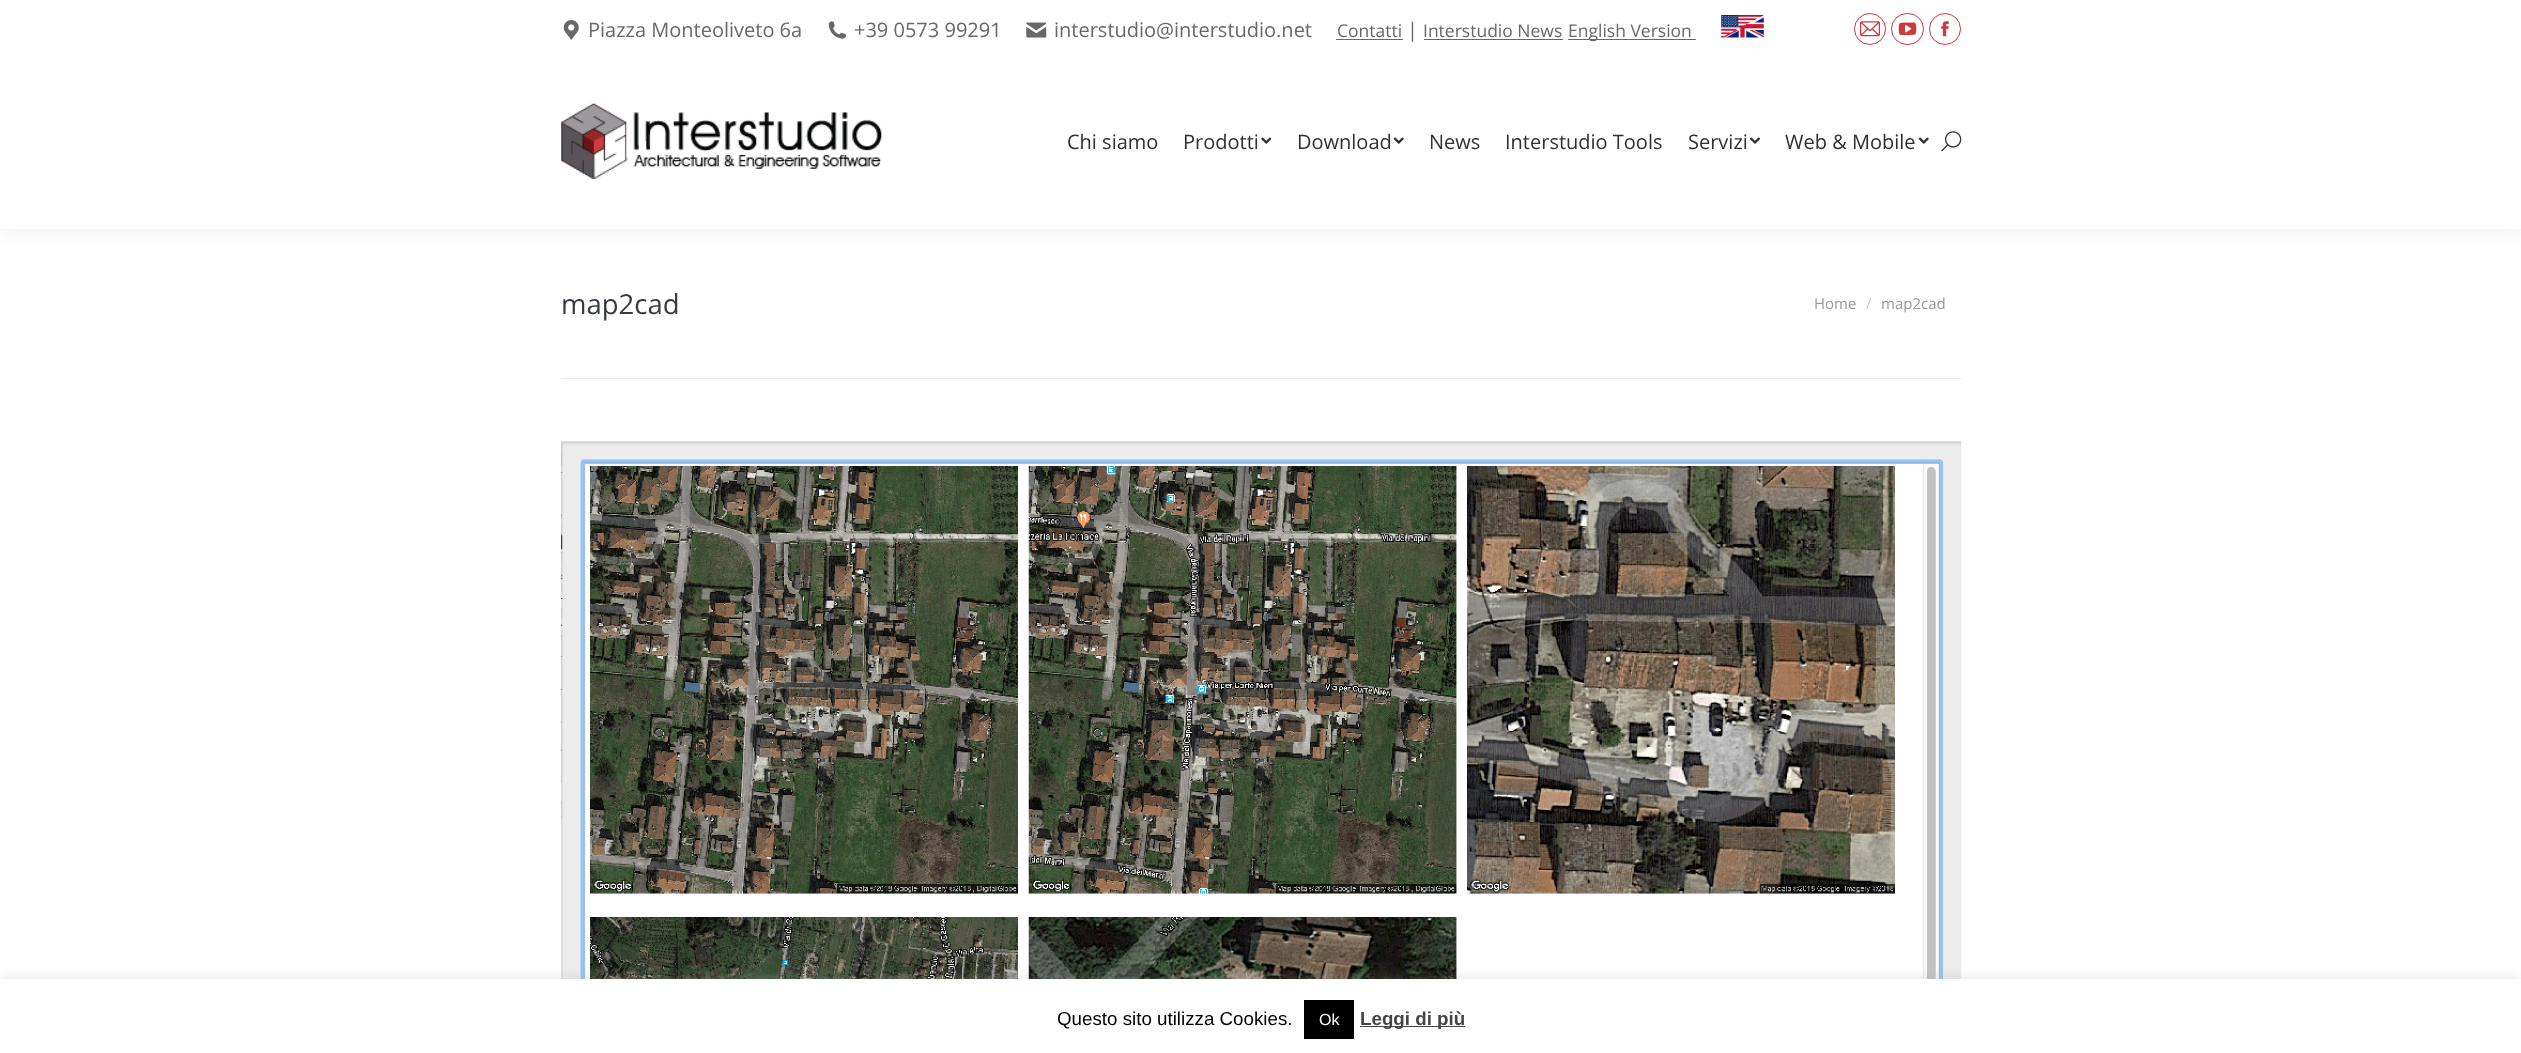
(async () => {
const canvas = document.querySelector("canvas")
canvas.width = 2521
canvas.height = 1053
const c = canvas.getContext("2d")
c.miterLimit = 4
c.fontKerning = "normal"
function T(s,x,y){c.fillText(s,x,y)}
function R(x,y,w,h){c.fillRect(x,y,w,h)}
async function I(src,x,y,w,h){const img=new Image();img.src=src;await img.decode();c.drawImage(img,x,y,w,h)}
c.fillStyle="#fff"
R(0,0,2521,1053)
c.fillStyle="#00000012"
c.filter="blur(9.5px)"
c.beginPath()
c.rect(-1,-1,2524,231)
c.fill()
c.filter="none"
c.fillStyle="#fff"
R(0,0,2521,229)
await I("1.png",563,20,16,20)
c.font="20px Open Sans"
c.fillStyle="#686868"
T("Piazza Monteoliveto 6a",588,37)
await I("2.png",828,21,19,18)
T("+39 0573 99291",854,37)
await I("3.png",1026,22,21,16)
T("interstudio@interstudio.net",1054,37)
c.font="17.5px Open Sans"
T("Contatti",1337,37)
R(1336,39,67,1)
c.font="20px Open Sans"
T("|",1407,37)
c.font="17.5px Open Sans"
T("Interstudio News",1423,37)
R(1424,39,139,1)
R(1568,39,128,1)
T("English Version",1568,37)
await I("4.png",1721,15,43,23)
c.beginPath()
c.arc(1870,29,15.5,0,7)
c.strokeStyle="#ce3a39"
c.stroke()
await I("5.png",1860,21,20,16)
c.beginPath()
c.roundRect(1891.5,13.5,32,31,15.5)
c.stroke()
await I("6.png",1898,22,19,13)
c.beginPath()
c.arc(1945,29,15.5,0,7)
c.stroke()
await I("7.png",1941,21,8,16)
await I("8.png",561,103,321,76)
c.font="20px Open Sans"
c.fillStyle="#303030"
T("Chi siamo",1067,149)
T("Prodotti",1183,149)
await I("9.png",1261,137,11,7)
T("Download",1297,149)
await I("10.png",1393,137,11,7)
T("News",1429,149)
T("Interstudio Tools",1505,149)
T("Servizi",1688,149)
await I("11.png",1750,137,10,7)
T("Web & Mobile",1785,149)
await I("10.png",1918,137,11,7)
await I("12.png",1941,131,21,21)
c.font="27.5px Open Sans"
c.fillStyle="#373a41"
T("map2cad",561,314)
c.font="15px Open Sans"
c.fillStyle="#999"
T("Home",1814,309)
c.fillStyle="#ccc"
T("/",1866,309)
c.fillStyle="#999"
T("map2cad",1881,309)
c.fillStyle="#e9e9e9"
R(561,378,1400,1)
await I("13.png",561,441,1401,538)
c.fillStyle="#acabab4d"
c.filter="blur(6px)"
c.beginPath()
c.rect(0,978,2521,75)
c.fill()
c.filter="none"
c.fillStyle="#fff"
R(0,979,2521,74)
c.font="18.75px Liberation Sans"
c.fillStyle="#000"
T("Questo sito utilizza Cookies.",1057,1025)
R(1304,1000,50,39)
c.font="16px Liberation Sans"
c.fillStyle="#fff"
T("Ok",1319,1025)
c.fillStyle="#444"
R(1360,1026,105,1)
c.font="bold 18.75px Liberation Sans"
T("Leggi di più",1360,1025)
})()
